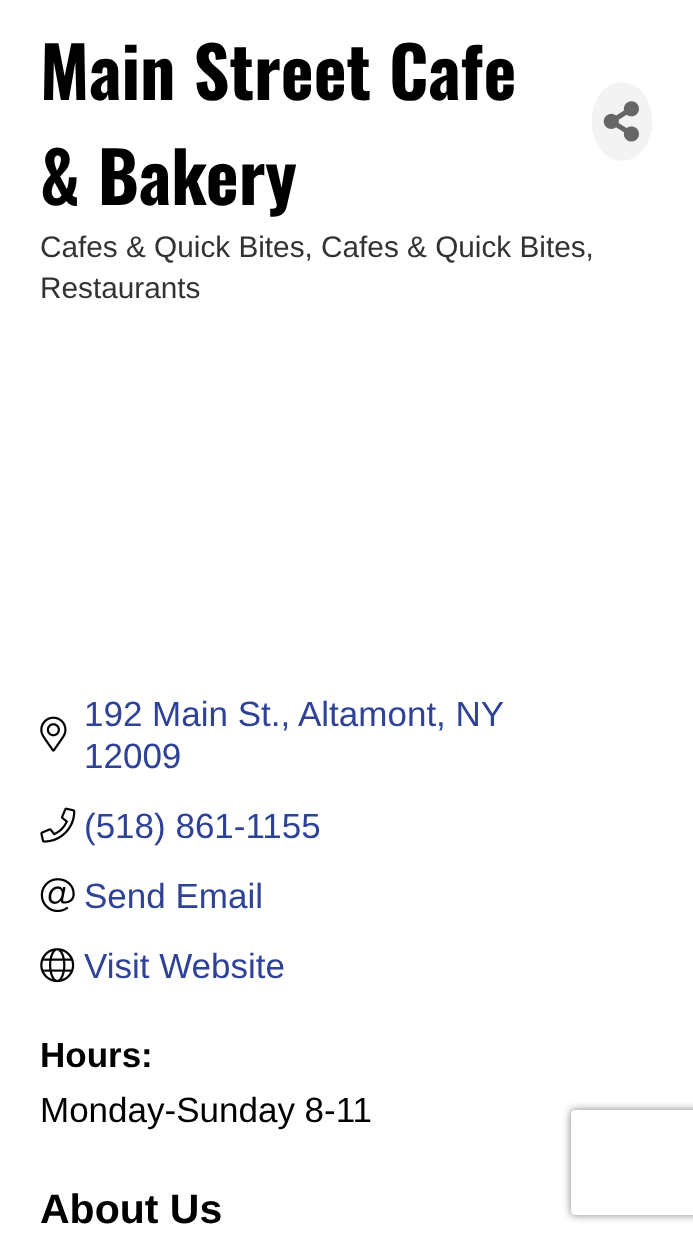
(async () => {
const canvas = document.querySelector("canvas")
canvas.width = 693
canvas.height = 1238
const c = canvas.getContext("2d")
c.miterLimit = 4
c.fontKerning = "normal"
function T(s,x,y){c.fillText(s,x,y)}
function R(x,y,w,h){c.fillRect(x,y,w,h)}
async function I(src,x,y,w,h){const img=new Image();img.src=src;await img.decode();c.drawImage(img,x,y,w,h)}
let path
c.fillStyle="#fff"
R(0,0,693,1238)
c.font="bold 70px Oswald"
c.fillStyle="#000"
T("Main Street Cafe",40,100)
T("& Bakery",40,205)
c.fillStyle="#f3f3f3"
c.beginPath()
c.ellipse(622,121.5,30.5,39.5,0,0,7)
c.fill()
await I("1.png",603,101,36,41)
c.font="29.75px Liberation Sans"
c.fillStyle="#333"
T("Cafes & Quick Bites, Cafes & Quick Bites,",40,257)
T("Restaurants",40,298)
await I("2.png",40,716,27,36)
c.font="35px Liberation Sans"
c.fillStyle="#2e4298"
T("192 Main St.,",84,726)
T("Altamont, NY",298,726)
T("12009",84,768)
await I("3.png",40,807,36,36)
T("(518) 861-1155",84,838)
await I("4.png",40,878,35,35)
T("Send Email",84,908)
await I("5.png",40,948,35,35)
T("Visit Website",84,978)
c.font="bold 35px Liberation Sans"
c.fillStyle="#000"
T("Hours:",40,1067)
c.font="35px Liberation Sans"
T("Monday-Sunday 8-11",40,1122)
c.font="bold 41px Liberation Sans"
T("About Us",40,1223)
c.save()
path = new Path2D("M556 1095h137v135h-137zm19 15h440c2 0 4 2 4 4v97c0 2-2 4-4 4h-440c-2 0-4-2-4-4v-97c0-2 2-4 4-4z")
c.clip(path,"evenodd")
c.fillStyle="#808080"
c.filter="blur(4.5px)"
c.beginPath()
c.roundRect(571,1110,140,105,4)
c.fill()
c.filter="none"
c.restore()
})()
